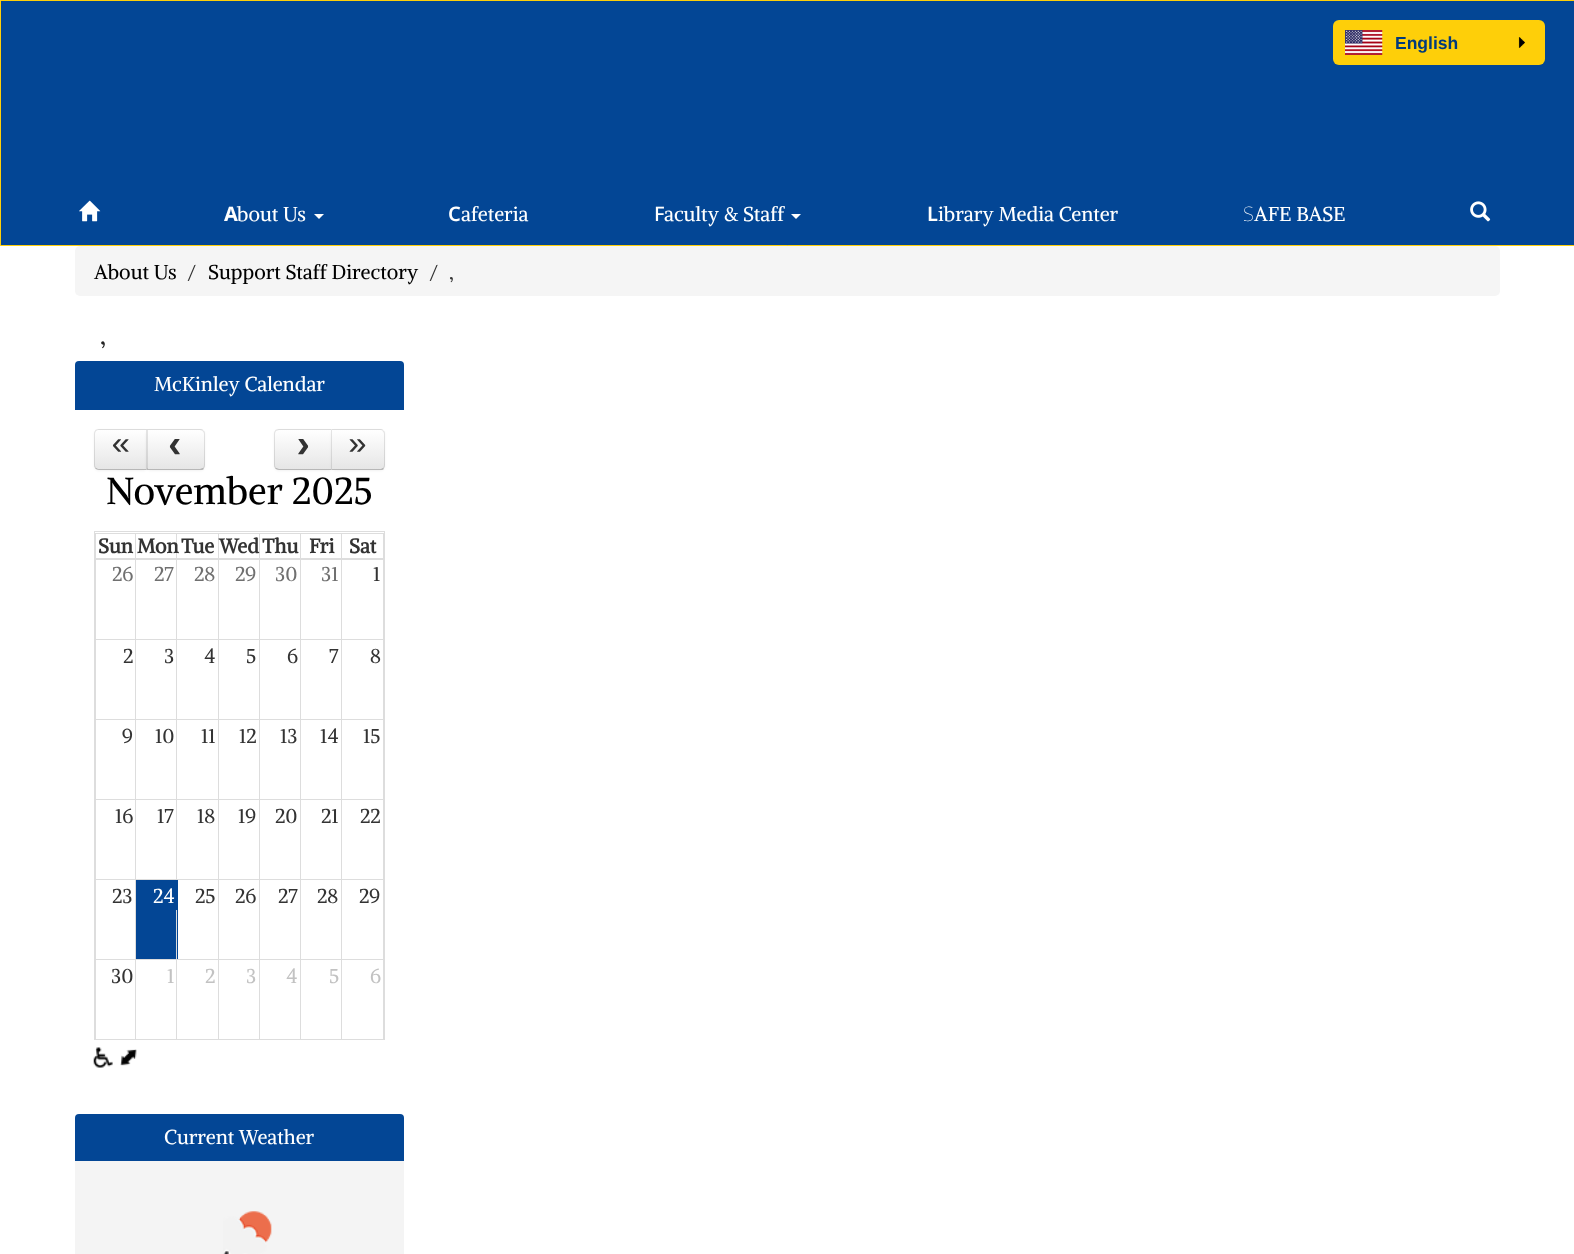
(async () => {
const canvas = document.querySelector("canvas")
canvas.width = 1574
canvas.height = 1254
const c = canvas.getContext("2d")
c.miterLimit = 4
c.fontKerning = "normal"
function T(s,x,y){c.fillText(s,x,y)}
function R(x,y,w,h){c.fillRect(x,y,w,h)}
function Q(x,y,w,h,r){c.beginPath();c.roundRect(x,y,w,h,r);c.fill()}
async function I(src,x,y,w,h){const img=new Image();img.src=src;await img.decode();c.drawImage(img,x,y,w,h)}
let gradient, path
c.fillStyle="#fff"
R(0,0,1574,1254)
c.fillStyle="#034695"
c.beginPath()
c.rect(.5,.5,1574,245)
c.fill()
c.strokeStyle="#fecf09"
c.stroke()
c.fillStyle="#fecf09"
Q(1333,20,212,45,6)
await I("1.png",1345,30,38,25)
c.font="bold 17.5px Liberation Sans"
c.fillStyle="#023a7c"
T("English",1395,49)
await I("2.png",1518,37,7,11)
await I("3.png",79,200,22,22)
c.font="bold 20px Noto Sans"
c.fillStyle="#fff"
T("A",224,221)
c.font="20px Alike"
T("bout Us",237,221)
path = new Path2D("M314 214h10l-5 5z")
c.fill(path)
c.font="600 20px Noto Sans"
T("C",448,221)
c.font="20px Alike"
T("afeteria",461,221)
c.font="500 20px Noto Sans"
T("F",654,221)
c.font="20px Alike"
T("aculty & Staff",664,221)
path = new Path2D("M791 214h10l-5 5z")
c.fill(path)
c.font="600 20px Noto Sans"
T("L",927,221)
c.font="20px Alike"
T("ibrary Media Center",938,221)
c.font="100 20px Noto Sans"
T("S",1243,221)
c.font="20px Alike"
T("AFE BASE",1254,221)
await I("4.png",1470,201,21,21)
c.fillStyle="#f5f5f5"
Q(75,246,1425,50,5)
c.fillStyle="#000"
T("About Us",94,279)
c.fillStyle="#333"
T("/",187,279)
c.fillStyle="#000"
T("Support Staff Directory",208,279)
c.fillStyle="#333"
T("/",429,279)
T(",",449,279)
c.font="25px Alike"
c.fillStyle="#222"
T(",",100,344)
c.fillStyle="#034695"
c.beginPath()
c.roundRect(75,361,329,49,[4,4,0,0])
c.fill()
c.font="20px Alike"
c.fillStyle="#fff"
T("McKinley Calendar",154,391)
c.fillStyle="#0000000d"
c.filter="blur(1px)"
c.beginPath()
c.roundRect(94,430,54,41,5)
c.fill()
c.filter="none"
c.fillStyle="#f5f5f5"
c.beginPath()
c.roundRect(94,429,54,41,[5,0,0,5])
c.fill()
c.save()
c.beginPath()
c.roundRect(94,429,54,41,[5,0,0,5])
c.clip()
gradient = c.createLinearGradient(121,430,121,469)
gradient.addColorStop(0,"#fff")
gradient.addColorStop(1,"#e6e6e6")
c.fillStyle = gradient
R(94,430,52,39)
c.restore()
c.fillStyle="#0000001a"
path = new Path2D("M99 429c-1 0-3 1-4 1l1 1l2-1h48l1-1z")
c.fill(path)
c.fillStyle="#00000040"
path = new Path2D("M148 470l-2-2v1h-48l-2-1h-1c1 1 2 2 4 2z")
c.fill(path)
c.fillStyle="#0000001a"
path = new Path2D("M95.5 430.5c-1 .5-1.5 2-1.5 3.5v31c0 1.5 .5 2.5 1.5 3.5l.5-1c-.5-.5-1-1.5-1-2.5v-31c0-1 .5-2 1-3z")
c.fill(path)
c.font="32px Liberation Mono"
c.fillStyle="#333"
T("«",111,454)
c.fillStyle="#0000000d"
c.filter="blur(1px)"
c.beginPath()
c.roundRect(146,430,59,41,5)
c.fill()
c.filter="none"
c.fillStyle="#f5f5f5"
c.beginPath()
c.roundRect(146,429,59,41,[0,5,5,0])
c.fill()
c.save()
c.beginPath()
c.roundRect(146,429,59,41,[0,5,5,0])
c.clip()
gradient = c.createLinearGradient(176,430,176,469)
gradient.addColorStop(0,"#fff")
gradient.addColorStop(1,"#e6e6e6")
c.fillStyle = gradient
R(146,430,59,39)
c.restore()
c.fillStyle="#0000001a"
path = new Path2D("M148 430h52l3 1v-1c0-1-2-1-3-1h-54z")
c.fill(path)
path = new Path2D("M203.5 430.5c1 .5 1.5 2 1.5 3.5v31c0 1.5-.5 3-1.5 3.5l-.5-.5c.5-1 1-2 1-3v-31c0-1-.5-2-1.5-3z")
c.fill(path)
c.fillStyle="#00000040"
path = new Path2D("M146 470h54c2 0 3 0 4-1l-1-1l-3 1h-52v-1z")
c.fill(path)
c.fillStyle="#0000001a"
path = new Path2D("M146 470l2-2v-38l-2-1z")
c.fill(path)
c.save()
c.beginPath()
c.rect(164,439,24,20)
c.clip()
c.font="bold 40px Liberation Mono"
c.fillStyle="#333"
T("‹",163,457)
c.restore()
c.fillStyle="#0000000d"
c.filter="blur(1px)"
c.beginPath()
c.roundRect(274,430,59,41,5)
c.fill()
c.filter="none"
c.fillStyle="#f5f5f5"
c.beginPath()
c.roundRect(274,429,59,41,[5,0,0,5])
c.fill()
c.save()
c.beginPath()
c.roundRect(274,429,59,41,[5,0,0,5])
c.clip()
gradient = c.createLinearGradient(303,430,303,469)
gradient.addColorStop(0,"#fff")
gradient.addColorStop(1,"#e6e6e6")
c.fillStyle = gradient
R(274,430,57,39)
c.restore()
c.fillStyle="#0000001a"
path = new Path2D("M279 429c-1 0-3 1-4 1l1 1l3-1h52l1-1z")
c.fill(path)
c.fillStyle="#00000040"
path = new Path2D("M279 470h53l-1-2v1h-52l-3-1h-1c1 1 2 2 4 2z")
c.fill(path)
c.fillStyle="#0000001a"
path = new Path2D("M275.5 430.5c-1 .5-1.5 2-1.5 3.5v31c0 1.5 .5 2.5 1.5 3.5l.5-1c-.5-.5-1-1.5-1-2.5v-31c0-1 .5-2 1-3z")
c.fill(path)
c.save()
c.beginPath()
c.rect(291,439,24,20)
c.clip()
c.font="bold 40px Liberation Mono"
c.fillStyle="#333"
T("›",291,457)
c.restore()
c.fillStyle="#0000000d"
c.filter="blur(1px)"
c.beginPath()
c.roundRect(331,430,54,41,5)
c.fill()
c.filter="none"
c.fillStyle="#f5f5f5"
c.beginPath()
c.roundRect(331,429,54,41,[0,5,5,0])
c.fill()
c.save()
c.beginPath()
c.roundRect(331,429,54,41,[0,5,5,0])
c.clip()
gradient = c.createLinearGradient(358,430,358,469)
gradient.addColorStop(0,"#fff")
gradient.addColorStop(1,"#e6e6e6")
c.fillStyle = gradient
R(331,430,54,39)
c.restore()
c.fillStyle="#0000001a"
path = new Path2D("M383 430c0-1-2-1-3-1h-48v1h48c1 0 2 0 3 1z")
c.fill(path)
path = new Path2D("M383.5 430.5c1 .5 1.5 2 1.5 3.5v31c0 1.5-.5 3-1.5 3.5l-.5-.5c.5-1 1-2 1-3v-31c0-1-.5-2-1.5-3z")
c.fill(path)
c.fillStyle="#00000040"
path = new Path2D("M331 470h49c2 0 3 0 4-1l-1-1l-2 1h-49z")
c.fill(path)
c.fillStyle="#0000001a"
path = new Path2D("M332 430l-1-1v41l1-1z")
c.fill(path)
c.fillStyle="#333"
T("»",348,454)
c.font="37.5px Alike"
c.fillStyle="#000"
T("November 2025",106,504)
c.fillStyle="#ddd"
R(94,531,291,1)
R(94,558,291,1)
R(384,558,1,482)
R(384,531,1,28)
R(94,1039,291,1)
R(94,558,1,482)
R(94,531,1,28)
R(341,533,43,1)
R(341,533,1,26)
R(300,533,43,1)
R(300,533,1,26)
R(259,533,42,1)
R(259,533,1,26)
R(218,533,42,1)
R(218,533,1,26)
R(176,533,43,1)
R(176,533,1,26)
R(135,533,43,1)
R(135,533,1,26)
R(95,533,41,1)
R(95,533,1,26)
c.font="bold 20px Alike"
c.fillStyle="#333"
T("Sun",98,553)
T("Mon",137,553)
T("Tue Wed",181,553)
T("Thu",262,553)
T("Fri",309,553)
c.fillStyle="#ddd"
R(383,533,1,26)
c.fillStyle="#333"
T("Sat",349,553)
c.fillStyle="#ddd"
R(341,559,43,1)
R(383,559,1,81)
R(341,639,43,1)
R(341,559,1,81)
R(300,559,43,1)
R(300,639,43,1)
R(300,559,1,81)
R(259,559,42,1)
R(259,639,42,1)
R(259,559,1,81)
R(218,559,42,1)
R(218,639,42,1)
R(218,559,1,81)
R(176,559,43,1)
R(176,639,43,1)
R(176,559,1,81)
R(135,559,43,1)
R(135,639,43,1)
R(135,559,1,81)
R(95,559,41,1)
R(95,639,41,1)
R(95,559,1,81)
c.font="20px Alike"
c.fillStyle="#707070"
T("26",112,581)
T("27",154,581)
T("28",194,581)
T("29",235,581)
T("30",275,581)
T("31",321,581)
c.fillStyle="#333"
T("1",373,581)
c.fillStyle="#ddd"
R(383,639,1,81)
R(341,719,43,1)
R(341,639,1,81)
R(300,719,43,1)
R(300,639,1,81)
R(259,719,42,1)
R(259,639,1,81)
R(218,719,42,1)
R(218,639,1,81)
R(176,719,43,1)
R(176,639,1,81)
R(135,719,43,1)
R(135,639,1,81)
R(95,719,41,1)
R(95,639,1,81)
c.fillStyle="#333"
T("2",123,663)
T("3",164,663)
T("4",204,663)
T("5",246,663)
T("6",287,663)
T("7",329,663)
T("8",370,663)
c.fillStyle="#ddd"
R(383,719,1,81)
R(341,799,43,1)
R(341,719,1,81)
R(300,799,43,1)
R(300,719,1,81)
R(259,799,42,1)
R(259,719,1,81)
R(218,799,42,1)
R(218,719,1,81)
R(176,799,43,1)
R(176,719,1,81)
R(135,799,43,1)
R(135,719,1,81)
R(95,799,41,1)
R(95,719,1,81)
c.fillStyle="#333"
T("9",122,743)
T("10",155,743)
T("11",201,743)
T("12",239,743)
T("13",280,743)
T("14",320,743)
T("15",363,743)
c.fillStyle="#ddd"
R(383,799,1,81)
R(341,879,43,1)
R(341,799,1,81)
R(300,879,43,1)
R(300,799,1,81)
R(259,879,42,1)
R(259,799,1,81)
R(218,879,42,1)
R(218,799,1,81)
R(176,879,43,1)
R(176,799,1,81)
R(135,879,43,1)
R(135,799,1,81)
R(95,879,41,1)
R(95,799,1,81)
c.fillStyle="#333"
T("16",115,823)
T("17",157,823)
T("18",197,823)
T("19",238,823)
T("20",275,823)
T("21",321,823)
T("22",360,823)
c.fillStyle="#ddd"
R(383,879,1,81)
R(341,959,43,1)
R(341,879,1,81)
R(300,959,43,1)
R(300,879,1,81)
R(259,959,42,1)
R(259,879,1,81)
R(218,959,42,1)
R(218,879,1,81)
R(176,959,43,1)
c.fillStyle="#034695"
R(136,910,42,49)
c.fillStyle="#ddd"
R(176,879,1,81)
R(135,959,43,1)
R(135,879,1,81)
R(95,959,41,1)
R(95,879,1,160)
c.fillStyle="#333"
T("23",112,903)
c.fillStyle="#034695"
R(136,880,42,30)
c.fillStyle="#fff"
T("24",153,903)
c.fillStyle="#333"
T("25",195,903)
T("26",235,903)
T("27",278,903)
T("28",317,903)
T("29",359,903)
c.fillStyle="#ddd"
R(135,959,1,80)
R(176,959,1,80)
R(218,959,1,80)
R(259,959,1,80)
R(300,959,1,80)
R(383,959,1,80)
R(341,959,1,80)
c.fillStyle="#333"
T("30",111,983)
c.fillStyle="#c2c2c2"
T("1",167,983)
T("2",205,983)
T("3",246,983)
T("4",286,983)
T("5",329,983)
T("6",370,983)
await I("5.png",93,1047,20,21)
await I("6.png",120,1049,17,17)
c.fillStyle="#034695"
c.beginPath()
c.roundRect(75,1114,329,47,[4,4,0,0])
c.fill()
c.fillStyle="#fff"
T("Current Weather",164,1144)
c.fillStyle="#f4f4f4"
R(75,1161,329,93)
await I("7.png",223,1211,49,43)
})()
